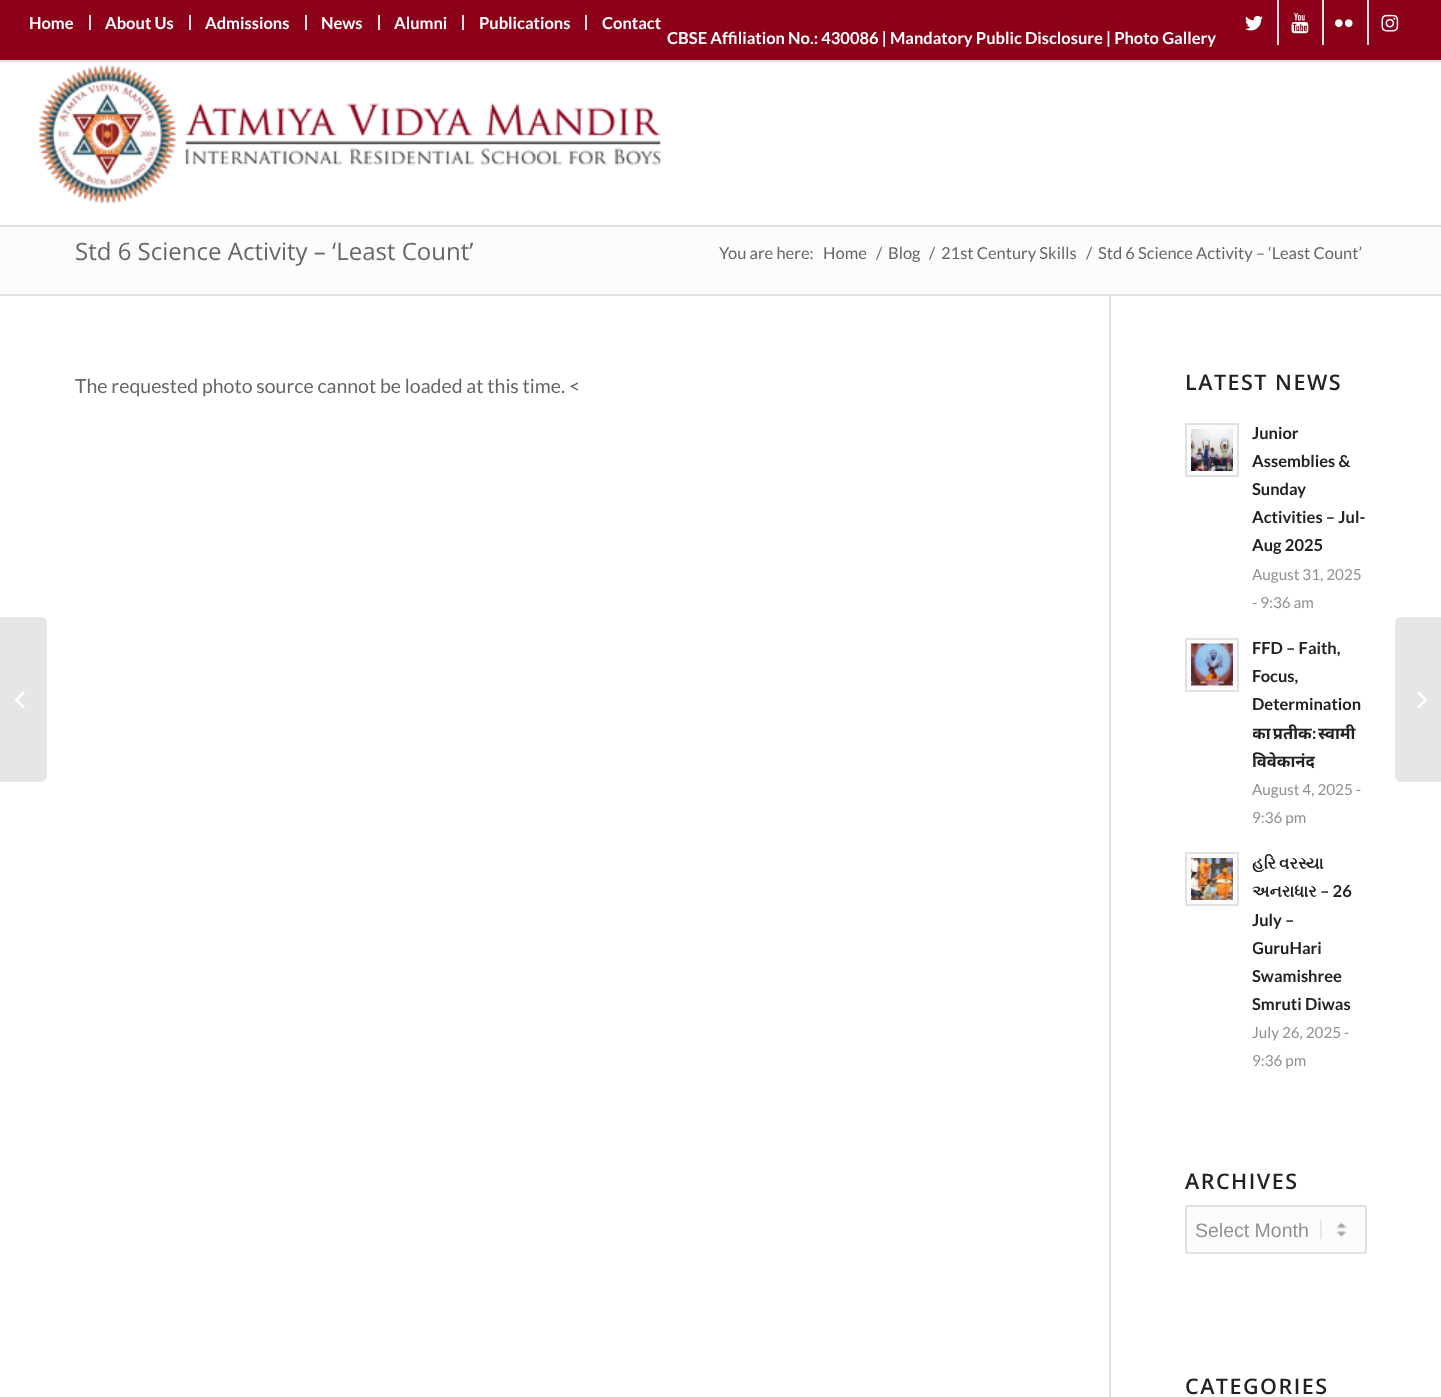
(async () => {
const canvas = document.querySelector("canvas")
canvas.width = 1441
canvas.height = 1397
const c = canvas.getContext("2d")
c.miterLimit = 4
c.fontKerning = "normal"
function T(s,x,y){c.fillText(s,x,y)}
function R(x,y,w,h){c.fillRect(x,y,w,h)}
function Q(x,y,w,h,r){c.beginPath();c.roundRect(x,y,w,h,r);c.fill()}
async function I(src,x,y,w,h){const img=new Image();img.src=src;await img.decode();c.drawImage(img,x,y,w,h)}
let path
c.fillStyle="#fff"
R(0,0,1441,1397)
c.fillStyle="#8c001a"
R(0,0,1441,60)
c.fillStyle="#e1e1e1"
R(0,60,1441,2)
R(89,15,2,15)
c.font="bold 16.5px Lato"
c.fillStyle="#fff"
T("Home",29,29)
c.fillStyle="#e1e1e1"
R(189,15,2,15)
c.fillStyle="#fff"
T("About Us",105,29)
c.fillStyle="#e1e1e1"
R(305,15,2,15)
c.fillStyle="#fff"
T("Admissions",205,29)
c.fillStyle="#e1e1e1"
R(378,15,2,15)
c.fillStyle="#fff"
T("News",321,29)
c.fillStyle="#e1e1e1"
R(462,15,2,15)
c.fillStyle="#fff"
T("Alumni",394,29)
c.fillStyle="#e1e1e1"
R(585,15,2,15)
c.fillStyle="#fff"
T("Publications",479,29)
T("Contact",602,29)
c.fillStyle="#e1e1e1"
R(1277,0,2,45)
await I("1.png",1245,15,18,16)
R(1322,0,2,45)
await I("2.png",1291,13,18,21)
R(1367,0,2,45)
await I("3.png",1335,19,18,9)
await I("4.png",1381,14,18,18)
c.fillStyle="#fff"
T("CBSE Affiliation No.: 430086 | Mandatory Public Disclosure | Photo Gallery",667,44)
c.fillStyle="#e1e1e1"
R(0,225,1441,2)
await I("5.png",38,65,624,139)
c.fillStyle="#e6e6e6"
c.beginPath()
c.roundRect(0,617,47,165,[0,6,6,0])
c.fill()
await I("6.png",15,691,10,17)
c.fillStyle="#fcfcfc"
R(0,227,1441,67)
c.font="24px Open Sans"
c.fillStyle="#666"
T("Std 6 Science Activity – ‘Least Count’",75,260)
c.font="16.5px Lato"
T("You are here:",719,259)
T("Home",823,259)
T("/",876,259)
T("Blog",888,259)
T("/",929,259)
T("21st Century Skills",941,259)
T("/",1086,259)
T("Std 6 Science Activity – ‘Least Count’",1098,259)
c.fillStyle="#e1e1e1"
R(0,294,1441,2)
c.font="19.5px Lato"
c.fillStyle="#666"
T("The requested photo source cannot be loaded at this time. <",75,393)
c.fillStyle="#e1e1e1"
R(1109,296,2,1101)
c.letterSpacing="1.5px"
c.font="600 21.5px Open Sans"
c.fillStyle="#222"
T("LATEST NEWS",1185,390)
c.fillStyle="#fcfcfc"
c.beginPath()
c.rect(1186,424,52,52)
c.fill()
c.strokeStyle="#e1e1e1"
c.lineWidth=2
c.stroke()
await I("7.png",1191,429,42,42)
c.letterSpacing="0px"
c.font="bold 16.5px Lato"
c.fillStyle="#222"
T("Junior",1252,439)
T("Assemblies &",1252,467)
T("Sunday",1252,495)
T("Activities – Jul-",1252,523)
T("Aug 2025",1252,551)
c.font="15.25px Lato"
c.fillStyle="#919191"
T("August 31, 2025",1252,580)
T("- 9:36 am",1252,608)
c.fillStyle="#fcfcfc"
c.beginPath()
c.rect(1186,639,52,52)
c.fill()
c.stroke()
await I("8.png",1191,643,42,43)
c.font="bold 16.5px Lato"
c.fillStyle="#222"
T("FFD – Faith,",1252,654)
T("Focus,",1252,682)
T("Determination",1252,710)
c.save()
c.beginPath()
c.rect(1253,635,114,196)
c.clip()
c.wordSpacing="-2px"
c.font="bold 16.5px Noto Sans"
T("का प्रतीक",1252,739)
c.restore()
T(":",1312,739)
c.font="bold 16.5px Noto Sans"
T("स्वामी",1318,739)
c.save()
c.beginPath()
c.rect(1253,635,114,196)
c.clip()
T("विवेकानंद",1252,767)
c.restore()
c.font="15.25px Lato"
c.fillStyle="#919191"
T("August 4, 2025 -",1252,795)
T("9:36 pm",1252,823)
c.fillStyle="#fcfcfc"
c.beginPath()
c.rect(1186,853,52,52)
c.fill()
c.stroke()
await I("9.png",1191,858,42,42)
c.wordSpacing="-1px"
c.font="bold 16.5px FreeSerif"
c.fillStyle="#222"
T("હરિ વરસ્યા",1252,869)
c.wordSpacing="0px"
T("અનરાધાર",1252,897)
c.font="bold 16.5px Lato"
T("– 26",1320,897)
T("July –",1252,926)
c.save()
c.beginPath()
c.rect(1253,849,114,227)
c.clip()
T("GuruHari",1252,954)
c.restore()
T("Swamishree",1252,982)
T("Smruti Diwas",1252,1010)
c.font="15.25px Lato"
c.fillStyle="#919191"
T("July 26, 2025 -",1252,1038)
T("9:36 pm",1252,1066)
c.letterSpacing="1.5px"
c.font="600 21.5px Open Sans"
c.fillStyle="#222"
T("ARCHIVES",1185,1189)
c.fillStyle="#fcfcfc"
Q(1185,1205,182,49,3)
await I("10.png",1320,1219,27,20)
c.beginPath()
c.roundRect(1186,1206,180,47,2)
c.stroke()
c.letterSpacing="0px"
c.font="19.5px Liberation Sans"
c.fillStyle="#919191"
T("Select Month",1195,1237)
c.letterSpacing="1.5px"
c.font="600 21.5px Open Sans"
c.fillStyle="#222"
T("CATEGORIES",1185,1394)
c.fillStyle="#e6e6e6"
path = new Path2D("M1401 617h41v165h-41c-3.5 0-6-2.5-6-6v-153c0-3.5 2.5-6 6-6z")
c.fill(path)
await I("11.png",1417,691,10,17)
})()
